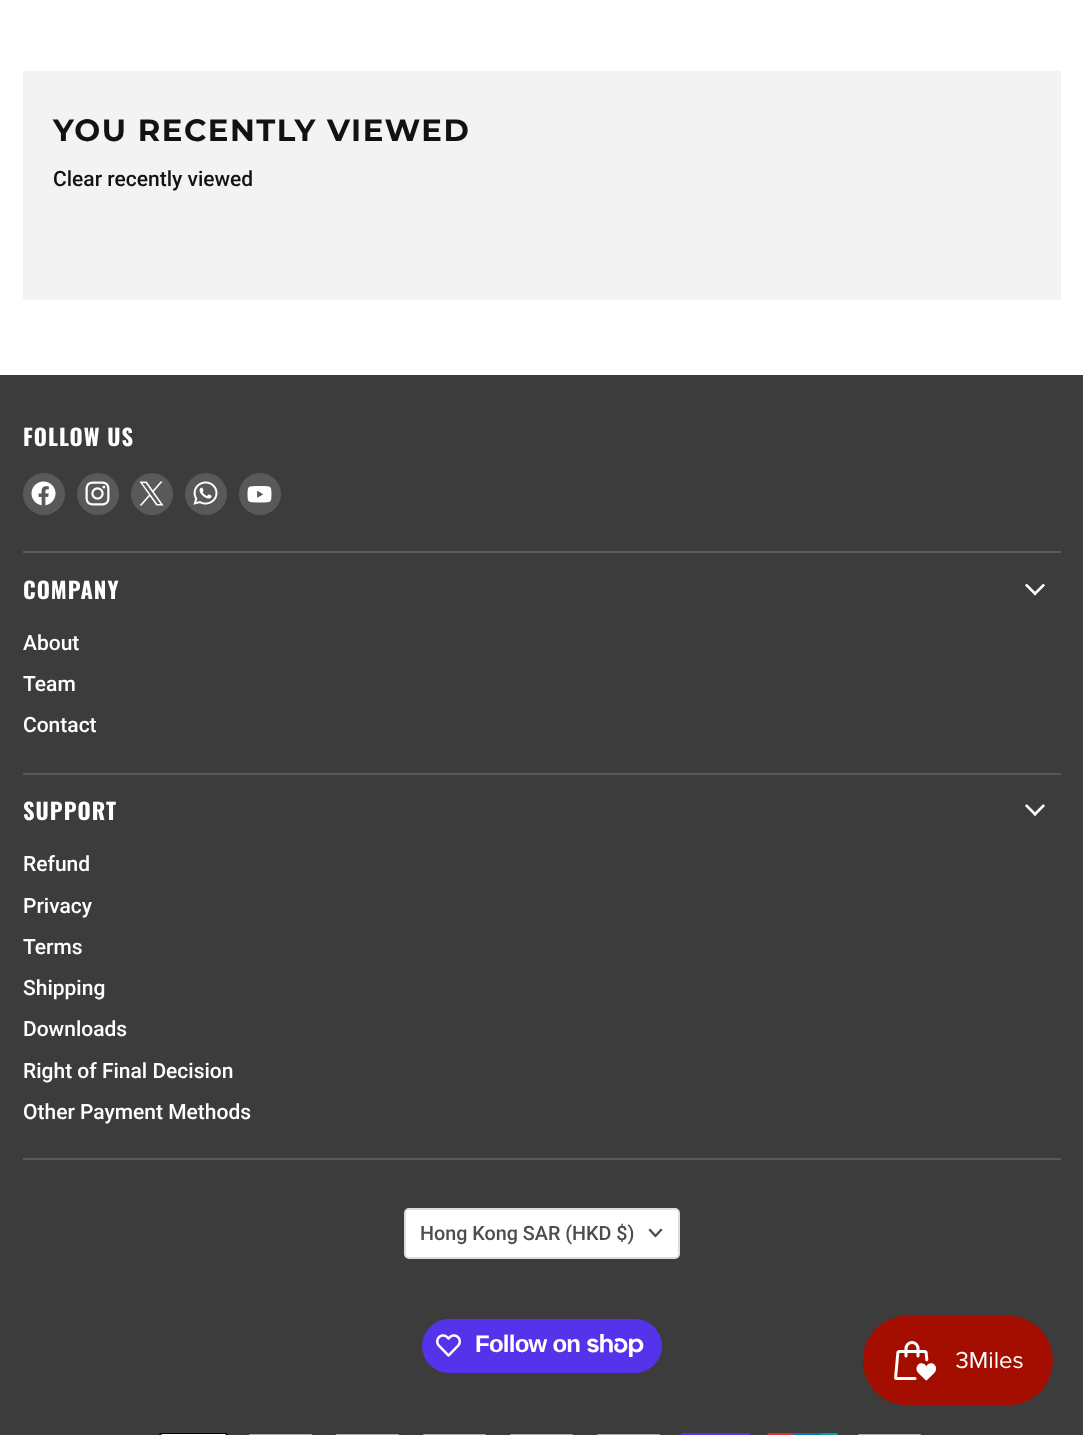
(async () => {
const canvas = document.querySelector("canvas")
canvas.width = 1083
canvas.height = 1435
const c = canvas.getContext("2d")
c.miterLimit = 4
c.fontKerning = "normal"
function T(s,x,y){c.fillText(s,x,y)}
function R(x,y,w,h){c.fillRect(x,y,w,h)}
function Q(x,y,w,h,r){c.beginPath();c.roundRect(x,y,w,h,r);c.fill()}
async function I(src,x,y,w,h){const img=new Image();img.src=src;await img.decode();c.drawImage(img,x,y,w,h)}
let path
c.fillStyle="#fff"
R(0,0,1083,1435)
c.fillStyle="#f3f3f3"
R(23,71,1038,229)
c.letterSpacing="1.5px"
c.font="bold 30.75px Montserrat"
c.fillStyle="#121212"
T("YOU RECENTLY VIEWED",53,141)
c.letterSpacing="0px"
c.font="500 21px Roboto"
T("Clear recently viewed",53,186)
c.fillStyle="#3c3c3c"
R(0,375,1083,1060)
c.fillStyle="#595959"
R(23,551,1038,2)
c.letterSpacing="1px"
c.font="bold 22.5px Oswald"
c.fillStyle="#fff"
T("FOLLOW US",23,446)
c.fillStyle="#595959"
c.beginPath()
c.arc(44,494,21,0,7)
c.fill()
await I("1.png",31,481,25,25)
c.beginPath()
c.arc(98,494,21,0,7)
c.fill()
await I("2.png",85,481,25,25)
c.beginPath()
c.arc(152,494,21,0,7)
c.fill()
await I("3.png",139,481,25,25)
c.beginPath()
c.arc(206,494,21,0,7)
c.fill()
await I("4.png",193,481,25,24)
c.beginPath()
c.arc(260,494,21,0,7)
c.fill()
await I("5.png",247,486,25,17)
R(23,773,1038,2)
c.fillStyle="#fff"
T("COMPANY",23,599)
await I("6.png",1025,584,20,12)
c.letterSpacing="0px"
c.font="500 21px Roboto"
T("About",23,650)
T("Team",23,691)
T("Contact",23,732)
c.fillStyle="#595959"
R(23,1158,1038,2)
c.letterSpacing="1px"
c.font="bold 22.5px Oswald"
c.fillStyle="#fff"
T("SUPPORT",23,820)
await I("7.png",1025,804,20,12)
c.letterSpacing="0px"
c.font="500 21px Roboto"
T("Refund",23,871)
T("Privacy",23,913)
T("Terms",23,954)
T("Shipping",23,995)
T("Downloads",23,1036)
T("Right of Final Decision",23,1078)
T("Other Payment Methods",23,1119)
c.beginPath()
c.roundRect(405,1209,274,49,4)
c.fill()
c.strokeStyle="#ddd"
c.lineWidth=2
c.stroke()
c.font="500 19.75px Roboto"
c.fillStyle="#4d4d4d"
T("Hong Kong SAR (HKD $)",420,1240)
path = new Path2D("M655.5 1236l5.5-6m-5.5 6l-5.5-6")
c.strokeStyle="#4d4d4d"
c.lineWidth=2.3
c.lineCap="square"
c.stroke(path)
c.fillStyle="#5433eb"
Q(422,1319,240,54,27)
await I("8.png",436,1334,25,23)
c.letterSpacing="-0.75px"
c.font="bold 24px Liberation Sans"
c.fillStyle="#fff"
T("Follow on",475,1352)
await I("9.png",587,1334,57,23)
await I("10.png",159,1433,69,2)
await I("11.png",247,1433,67,2)
await I("11.png",334,1433,67,2)
await I("11.png",421,1433,67,2)
await I("11.png",508,1433,67,2)
await I("11.png",595,1433,67,2)
await I("12.png",680,1433,71,2)
await I("13.png",767,1433,71,2)
await I("11.png",856,1433,67,2)
await I("14.png",862,1315,191,91)
})()
